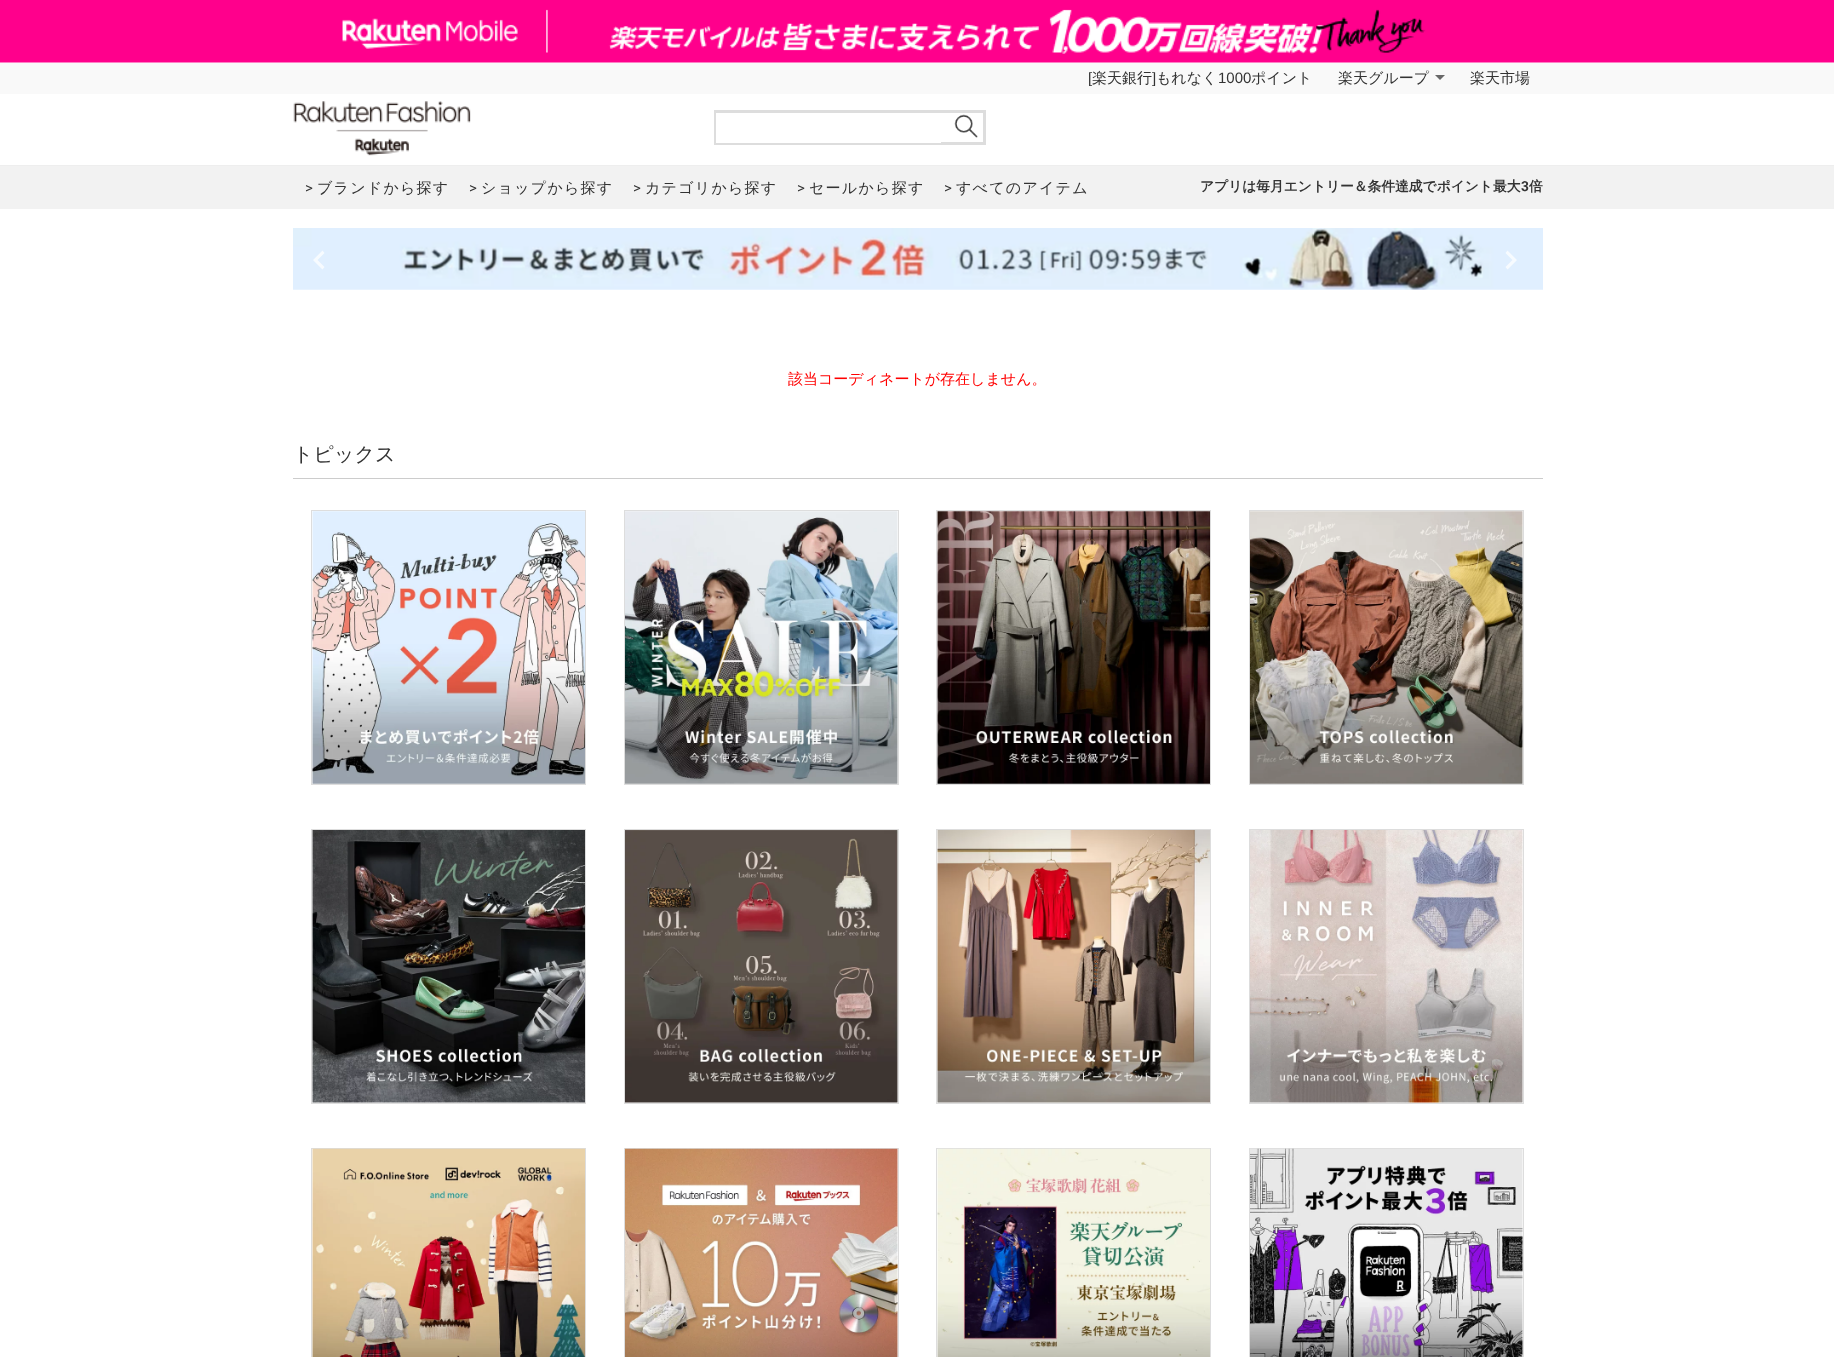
(async () => {
const canvas = document.querySelector("canvas")
canvas.width = 1834
canvas.height = 1357
const c = canvas.getContext("2d")
c.miterLimit = 4
c.fontKerning = "normal"
function T(s,x,y){c.fillText(s,x,y)}
function R(x,y,w,h){c.fillRect(x,y,w,h)}
async function I(src,x,y,w,h){const img=new Image();img.src=src;await img.decode();c.drawImage(img,x,y,w,h)}
let path
c.fillStyle="#fff"
R(0,0,1834,1357)
await I("1.png",0,0,1834,63)
c.fillStyle="#f9f9f9"
R(0,63,1834,31)
c.font="15px Liberation Sans"
c.fillStyle="#333"
T("[",1088,83)
c.font="500 15px WenQuanYi Zen Hei"
T("楽天銀行",1092,83)
c.font="15px Liberation Sans"
T("]",1152,83)
c.font="500 15px WenQuanYi Zen Hei"
T("もれなく",1156,83)
c.font="15px Liberation Sans"
T("1000",1218,83)
c.font="500 15px WenQuanYi Zen Hei"
T("ポイント",1251,83)
T("楽天グループ",1338,83)
c.fillStyle="#686868"
path = new Path2D("M1435 75h10l-5 5z")
c.fill(path)
c.fillStyle="#333"
T("楽天市場",1470,83)
c.fillStyle="#eee"
R(0,165,1834,1)
await I("2.png",293,101,178,55)
c.strokeStyle="#ddd"
c.lineWidth=3
c.strokeRect(715.5,111.5,269,32)
c.fillStyle="#fff"
R(716,113,225,30)
await I("3.png",954,114,24,24)
c.fillStyle="#f2f2f2"
R(0,166,1834,43)
c.letterSpacing="1.25px"
c.font="15px Roboto"
c.fillStyle="#333"
T(">",305,193)
c.font="500 15px WenQuanYi Zen Hei"
T("ブランドから探す",317,193)
c.font="15px Roboto"
T(">",469,193)
c.font="500 15px WenQuanYi Zen Hei"
T("ショップから探す",481,193)
c.font="15px Roboto"
T(">",633,193)
c.font="500 15px WenQuanYi Zen Hei"
T("カテゴリから探す",645,193)
c.font="15px Roboto"
T(">",797,193)
c.font="500 15px WenQuanYi Zen Hei"
T("セールから探す",809,193)
c.font="15px Roboto"
T(">",944,193)
c.font="500 15px WenQuanYi Zen Hei"
T("すべてのアイテム",956,193)
c.letterSpacing="0px"
c.font="bold 13.75px WenQuanYi Zen Hei"
T("アプリは毎月エントリー＆条件達成でポイント最大",1200,191)
c.font="bold 13.75px Roboto"
T("3",1521,191)
c.font="bold 13.75px WenQuanYi Zen Hei"
T("倍",1529,191)
await I("4.png",293,228,1250,62)
c.fillStyle="#f7fbff"
path = new Path2D("M324.5 267l-2 2.5l-9.5-9.5l9.5-9.5l2 2.5l-7 7z")
c.fill(path)
path = new Path2D("M1505.5 267l7-7l-7-7l2-2.5l9.5 9.5l-9.5 9.5z")
c.fill(path)
c.font="500 15px WenQuanYi Zen Hei"
c.fillStyle="#f00"
T("該当コーディネートが存在しません。",788,384)
c.fillStyle="#ccc"
R(293,478,1250,1)
c.font="500 20px WenQuanYi Zen Hei"
c.fillStyle="#333"
T("トピックス",293,461)
c.lineWidth=1
c.strokeRect(311.5,510.5,274,274)
await I("5.png",312,511,273,273)
c.strokeRect(624.5,510.5,274,274)
await I("6.png",625,511,273,273)
c.strokeRect(936.5,510.5,274,274)
await I("7.png",937,511,273,273)
c.strokeRect(1249.5,510.5,274,274)
await I("8.png",1250,511,273,273)
c.strokeRect(311.5,829.5,274,274)
await I("9.png",312,830,273,273)
c.strokeRect(624.5,829.5,274,274)
await I("10.png",625,830,273,273)
c.strokeRect(936.5,829.5,274,274)
await I("11.png",937,830,273,273)
c.strokeRect(1249.5,829.5,274,274)
await I("12.png",1250,830,273,273)
c.strokeRect(311.5,1148.5,274,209)
await I("13.png",312,1148,273,209)
c.strokeRect(624.5,1148.5,274,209)
await I("14.png",625,1148,273,209)
c.strokeRect(936.5,1148.5,274,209)
await I("15.png",937,1148,273,209)
c.strokeRect(1249.5,1148.5,274,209)
await I("16.png",1250,1148,273,209)
})()
